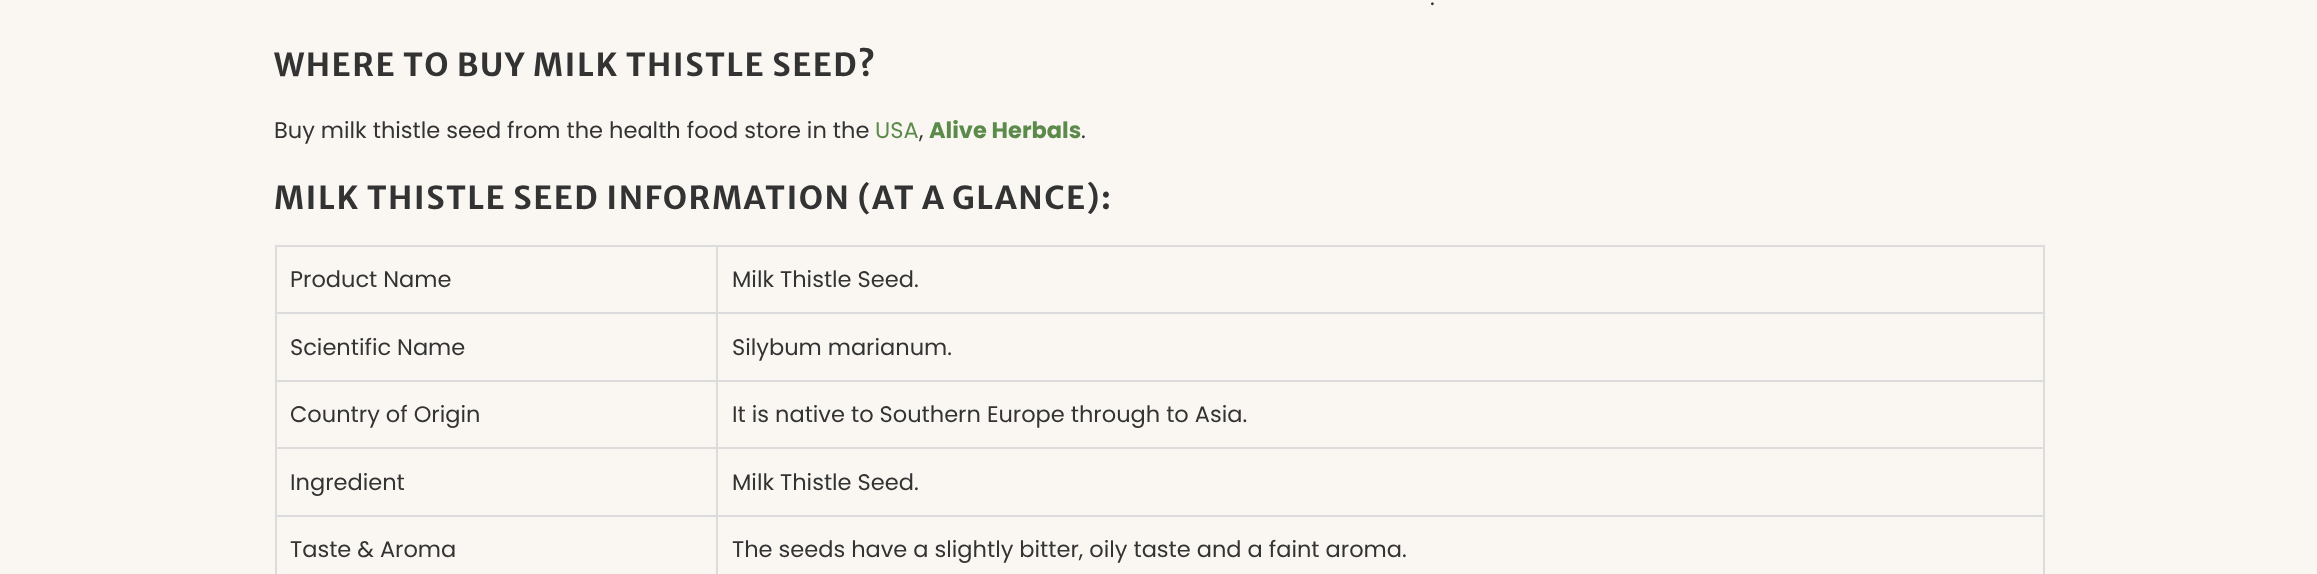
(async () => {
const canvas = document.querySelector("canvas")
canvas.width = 2317
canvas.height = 574
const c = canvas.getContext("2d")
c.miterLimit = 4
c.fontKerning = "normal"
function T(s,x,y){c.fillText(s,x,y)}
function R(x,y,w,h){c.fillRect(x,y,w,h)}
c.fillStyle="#faf7f2"
R(0,0,2317,574)
c.font="22.5px Poppins"
c.fillStyle="#333"
T(".",1430,5)
c.letterSpacing="1.5px"
c.font="bold 31.5px Merriweather Sans"
T("WHERE TO BUY MILK THISTLE SEED?",274,76)
c.letterSpacing="0px"
c.font="22.5px Poppins"
T("Buy milk thistle seed from the health food store in the",274,138)
c.fillStyle="#5b8a4a"
T("USA",875,138)
c.fillStyle="#333"
T(",",919,138)
c.font="bold 22.5px Poppins"
c.fillStyle="#5b8a4a"
T("Alive Herbals",929,138)
c.font="22.5px Poppins"
c.fillStyle="#333"
T(".",1081,138)
c.letterSpacing="1.5px"
c.font="bold 31.5px Merriweather Sans"
T("MILK THISTLE SEED INFORMATION (AT A GLANCE):",274,209)
c.fillStyle="#dcdcdc"
R(275,245,1770,2)
R(275,312,1770,2)
c.letterSpacing="0px"
c.font="22.5px Poppins"
c.fillStyle="#333"
T("Product Name",290,287)
T("Milk Thistle Seed.",732,287)
c.fillStyle="#dcdcdc"
R(275,380,1770,2)
c.fillStyle="#333"
T("Scientific Name",290,355)
T("Silybum marianum.",732,355)
c.fillStyle="#dcdcdc"
R(275,447,1770,2)
c.fillStyle="#333"
T("Country of Origin",290,422)
T("It is native to Southern Europe through to Asia.",732,422)
c.fillStyle="#dcdcdc"
R(275,515,1770,2)
c.fillStyle="#333"
T("Ingredient",290,490)
T("Milk Thistle Seed.",732,490)
c.fillStyle="#dcdcdc"
R(716,245,2,329)
R(275,245,2,329)
c.fillStyle="#333"
T("Taste & Aroma",290,557)
c.fillStyle="#dcdcdc"
R(2043,245,2,329)
c.fillStyle="#333"
T("The seeds have a slightly bitter, oily taste and a faint aroma.",732,557)
})()
